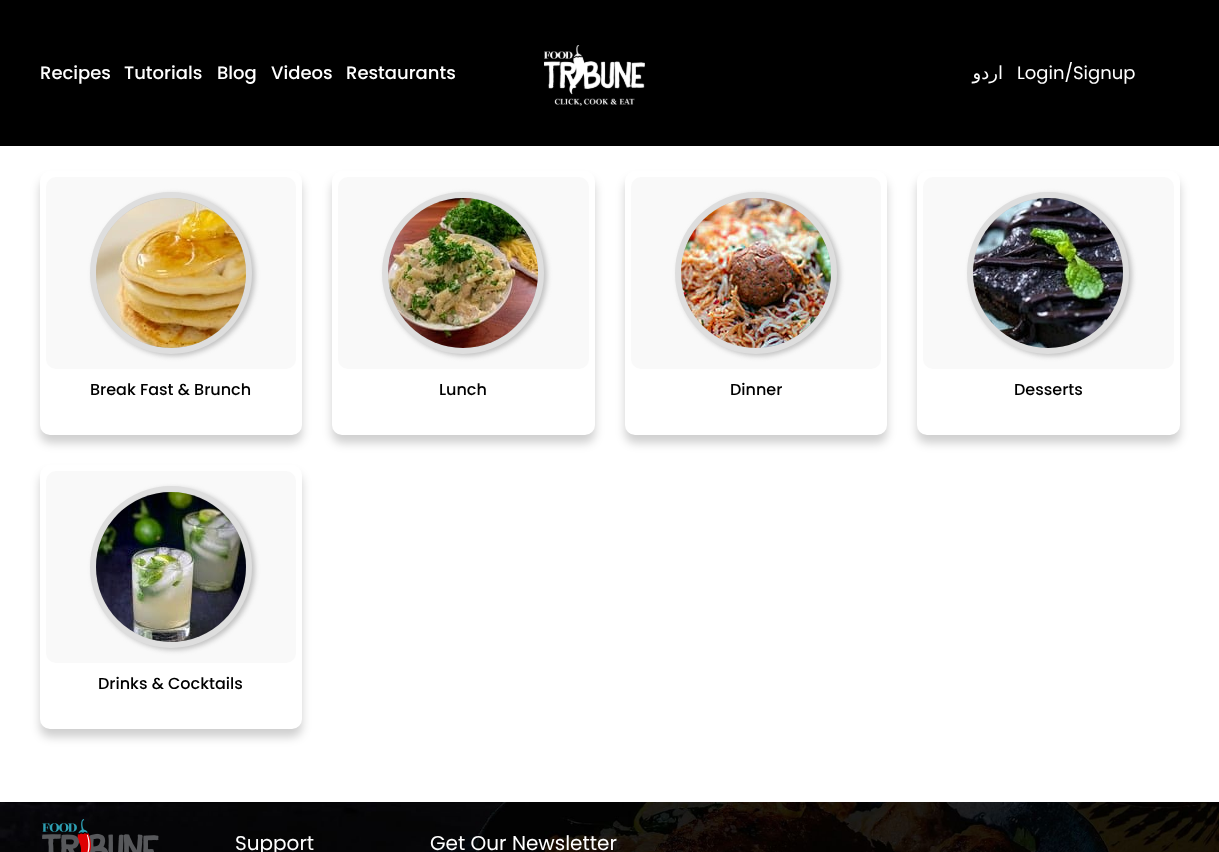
(async () => {
const canvas = document.querySelector("canvas")
canvas.width = 1219
canvas.height = 852
const c = canvas.getContext("2d")
c.miterLimit = 4
c.fontKerning = "normal"
function T(s,x,y){c.fillText(s,x,y)}
function R(x,y,w,h){c.fillRect(x,y,w,h)}
function Q(x,y,w,h,r){c.beginPath();c.roundRect(x,y,w,h,r);c.fill()}
async function I(src,x,y,w,h){const img=new Image();img.src=src;await img.decode();c.drawImage(img,x,y,w,h)}
c.fillStyle="#fff"
R(0,0,1219,852)
c.fillStyle="#000"
R(0,0,1219,30)
R(0,30,1219,116)
c.font="500 18px Poppins"
c.fillStyle="#fff"
T("Recipes",40,79)
T("Tutorials",124,79)
T("Blog",217,79)
T("Videos",271,79)
T("Restaurants",346,79)
await I("1.png",544,45,101,61)
c.direction="rtl"
c.font="18px DejaVu Sans"
T("اردو",1003,79)
c.direction="ltr"
c.font="18px Poppins"
T("Login/Signup",1017,79)
c.fillStyle="#00000030"
c.filter="blur(5px)"
c.beginPath()
c.roundRect(40,179,262,264,10)
c.fill()
c.filter="none"
c.fillStyle="#fff"
Q(40,171,262,264,10)
c.fillStyle="#f9f9f9"
Q(46,177,250,192,10)
c.fillStyle="#c2c2c2"
c.filter="blur(2.5px)"
c.beginPath()
c.roundRect(93,194,162,162,81)
c.fill()
c.filter="none"
c.beginPath()
c.arc(171,273,78,0,7)
c.strokeStyle="#dedede"
c.lineWidth=6
c.stroke()
await I("2.png",96,198,150,150)
c.font="500 16px Poppins"
c.fillStyle="#000"
T("Break Fast & Brunch",90,395)
c.fillStyle="#00000030"
c.filter="blur(5px)"
c.beginPath()
c.roundRect(332,179,263,264,10)
c.fill()
c.filter="none"
c.fillStyle="#fff"
Q(332,171,263,264,10)
c.fillStyle="#f9f9f9"
Q(338,177,251,192,10)
c.fillStyle="#c2c2c2"
c.filter="blur(2.5px)"
c.beginPath()
c.roundRect(385,194,162,162,81)
c.fill()
c.filter="none"
c.beginPath()
c.arc(463,273,78,0,7)
c.stroke()
await I("3.png",388,198,150,150)
c.fillStyle="#000"
T("Lunch",439,395)
c.fillStyle="#00000030"
c.filter="blur(5px)"
c.beginPath()
c.roundRect(625,179,262,264,10)
c.fill()
c.filter="none"
c.fillStyle="#fff"
Q(625,171,262,264,10)
c.fillStyle="#f9f9f9"
Q(631,177,250,192,10)
c.fillStyle="#c2c2c2"
c.filter="blur(2.5px)"
c.beginPath()
c.roundRect(678,194,162,162,81)
c.fill()
c.filter="none"
c.beginPath()
c.arc(756,273,78,0,7)
c.stroke()
await I("4.png",681,198,150,150)
c.fillStyle="#000"
T("Dinner",730,395)
c.fillStyle="#00000030"
c.filter="blur(5px)"
c.beginPath()
c.roundRect(917,179,263,264,10)
c.fill()
c.filter="none"
c.fillStyle="#fff"
Q(917,171,263,264,10)
c.fillStyle="#f9f9f9"
Q(923,177,251,192,10)
c.fillStyle="#c2c2c2"
c.filter="blur(2.5px)"
c.beginPath()
c.roundRect(970,194,162,162,81)
c.fill()
c.filter="none"
c.beginPath()
c.arc(1048,273,78,0,7)
c.stroke()
await I("5.png",973,198,150,150)
c.fillStyle="#000"
T("Desserts",1014,395)
c.fillStyle="#00000030"
c.filter="blur(5px)"
c.beginPath()
c.roundRect(40,473,262,264,10)
c.fill()
c.filter="none"
c.fillStyle="#fff"
Q(40,465,262,264,10)
c.fillStyle="#f9f9f9"
Q(46,471,250,192,10)
c.fillStyle="#c2c2c2"
c.filter="blur(2.5px)"
c.beginPath()
c.roundRect(93,488,162,162,81)
c.fill()
c.filter="none"
c.beginPath()
c.arc(171,567,78,0,7)
c.stroke()
await I("6.png",96,492,150,150)
c.fillStyle="#000"
T("Drinks & Cocktails",98,689)
await I("7.png",0,802,1219,50)
await I("8.png",42,819,117,33)
c.font="20px Poppins"
c.fillStyle="#fff"
T("Support",235,850)
T("Get Our Newsletter",430,850)
})()
